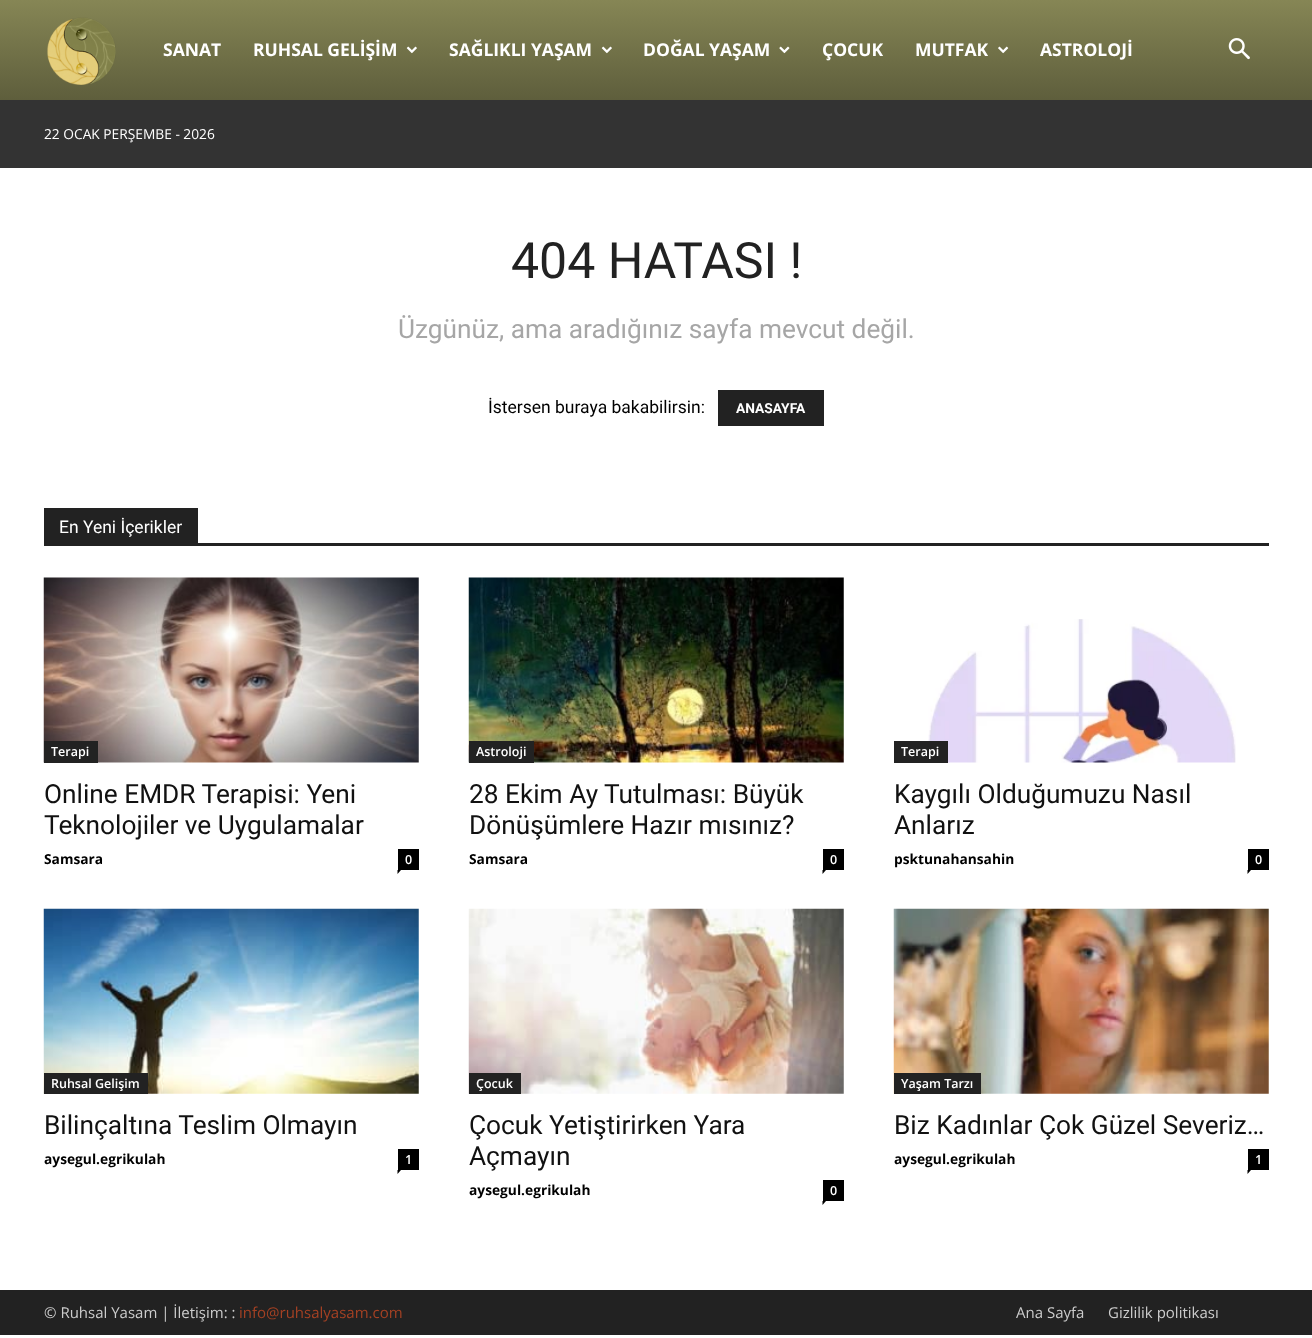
(async () => {
const canvas = document.querySelector("canvas")
canvas.width = 1312
canvas.height = 1338
const c = canvas.getContext("2d")
c.miterLimit = 4
c.fontKerning = "normal"
function T(s,x,y){c.fillText(s,x,y)}
function R(x,y,w,h){c.fillRect(x,y,w,h)}
async function I(src,x,y,w,h){const img=new Image();img.src=src;await img.decode();c.drawImage(img,x,y,w,h)}
let gradient, path
c.fillStyle="#fff"
R(0,0,1312,1338)
gradient = c.createLinearGradient(656,0,656,100)
gradient.addColorStop(0,"#868655")
gradient.addColorStop(1,"#5e5e3c")
c.fillStyle = gradient
R(0,0,1312,100)
await I("1.png",47,17,69,68)
c.font="bold 17.5px Open Sans"
c.fillStyle="#fff"
T("SANAT",163,56)
T("RUHSAL GELİŞİM",253,56)
await I("2.png",406,46,11,8)
T("SAĞLIKLI YAŞAM",449,56)
await I("2.png",601,46,11,8)
T("DOĞAL YAŞAM",643,56)
await I("3.png",779,46,11,8)
T("ÇOCUK",822,56)
T("MUTFAK",915,56)
await I("4.png",998,46,11,8)
T("ASTROLOJİ",1040,56)
await I("5.png",1228,38,22,22)
c.fillStyle="#333"
R(0,100,1312,68)
c.font="13.75px Open Sans"
c.fillStyle="#fff"
T("22 OCAK PERŞEMBE - 2026",44,139)
c.font="50px Roboto"
c.fillStyle="#222"
T("404 HATASI !",511,278)
c.font="26.25px Roboto"
c.fillStyle="#a6a6a6"
T("Üzgünüz, ama aradığınız sayfa mevcut değil.",398,338)
c.font="17.5px Roboto"
c.fillStyle="#000"
T("İstersen buraya bakabilirsin:",488,413)
c.fillStyle="#222"
R(718,390,106,36)
c.font="bold 13.75px Roboto"
c.fillStyle="#fff"
T("ANASAYFA",736,413)
c.fillStyle="#222"
R(44,543,1225,3)
R(44,508,154,35)
c.font="17.5px Roboto"
c.fillStyle="#fff"
T("En Yeni İçerikler",59,533)
await I("6.png",43,577,376,186)
c.fillStyle="#222"
R(44,741,54,22)
c.font="600 12.5px Open Sans"
c.fillStyle="#fff"
T("Terapi",51,756)
c.font="26.25px Roboto"
c.fillStyle="#111"
T("Online EMDR Terapisi: Yeni",44,803)
T("Teknolojiler ve Uygulamalar",44,834)
c.font="bold 13.75px Open Sans"
c.fillStyle="#000"
T("Samsara",44,864)
R(398,849,21,21)
c.font="600 12.5px Open Sans"
c.fillStyle="#fff"
T("0",405,864)
c.fillStyle="#000"
path = new Path2D("M397.5 870h3.5l-3.5 4z")
c.fill(path)
await I("7.png",468,577,376,186)
c.fillStyle="#222"
R(469,741,65,22)
c.fillStyle="#fff"
T("Astroloji",476,756)
c.font="26.25px Roboto"
c.fillStyle="#111"
T("28 Ekim Ay Tutulması: Büyük",469,803)
T("Dönüşümlere Hazır mısınız?",469,834)
c.font="bold 13.75px Open Sans"
c.fillStyle="#000"
T("Samsara",469,864)
R(823,849,21,21)
c.font="600 12.5px Open Sans"
c.fillStyle="#fff"
T("0",830,864)
c.fillStyle="#000"
path = new Path2D("M822.5 870h3.5l-3.5 4z")
c.fill(path)
await I("8.png",928,619,308,144)
c.fillStyle="#222"
R(894,741,54,22)
c.fillStyle="#fff"
T("Terapi",901,756)
c.font="26.25px Roboto"
c.fillStyle="#111"
T("Kaygılı Olduğumuzu Nasıl",894,803)
T("Anlarız",894,834)
c.font="bold 13.75px Open Sans"
c.fillStyle="#000"
T("psktunahansahin",894,864)
R(1248,849,21,21)
c.font="600 12.5px Open Sans"
c.fillStyle="#fff"
T("0",1255,864)
c.fillStyle="#000"
path = new Path2D("M1247.5 870h3.5l-3.5 4z")
c.fill(path)
await I("9.png",43,908,376,186)
c.fillStyle="#222"
R(44,1073,104,21)
c.fillStyle="#fff"
T("Ruhsal Gelişim",51,1088)
c.font="26.25px Roboto"
c.fillStyle="#111"
T("Bilinçaltına Teslim Olmayın",44,1134)
c.font="bold 13.75px Open Sans"
c.fillStyle="#000"
T("aysegul.egrikulah",44,1164)
R(398,1149,21,21)
c.font="600 12.5px Open Sans"
c.fillStyle="#fff"
T("1",405,1164)
c.fillStyle="#000"
path = new Path2D("M397.5 1170h3.5l-3.5 4z")
c.fill(path)
await I("10.png",468,908,376,186)
c.fillStyle="#222"
R(469,1073,52,21)
c.fillStyle="#fff"
T("Çocuk",476,1088)
c.font="26.25px Roboto"
c.fillStyle="#111"
T("Çocuk Yetiştirirken Yara",469,1134)
T("Açmayın",469,1165)
c.font="bold 13.75px Open Sans"
c.fillStyle="#000"
T("aysegul.egrikulah",469,1195)
R(823,1180,21,21)
c.font="600 12.5px Open Sans"
c.fillStyle="#fff"
T("0",830,1195)
c.fillStyle="#000"
path = new Path2D("M822.5 1201h3.5l-3.5 4z")
c.fill(path)
await I("11.png",893,908,376,186)
c.fillStyle="#222"
R(894,1073,87,21)
c.fillStyle="#fff"
T("Yaşam Tarzı",901,1088)
c.font="26.25px Roboto"
c.fillStyle="#111"
T("Biz Kadınlar Çok Güzel Severiz…",894,1134)
c.font="bold 13.75px Open Sans"
c.fillStyle="#000"
T("aysegul.egrikulah",894,1164)
R(1248,1149,21,21)
c.font="600 12.5px Open Sans"
c.fillStyle="#fff"
T("1",1255,1164)
c.fillStyle="#000"
path = new Path2D("M1247.5 1170h3.5l-3.5 4z")
c.fill(path)
c.fillStyle="#222"
R(0,1290,1312,45)
c.font="15px Open Sans"
c.fillStyle="#ccc"
T("© Ruhsal Yasam | İletişim: :",44,1318)
c.fillStyle="#a54123"
T("info@ruhsalyasam.com",239,1318)
c.fillStyle="#ccc"
T("Ana Sayfa",1016,1318)
T("Gizlilik politikası",1108,1318)
})()
